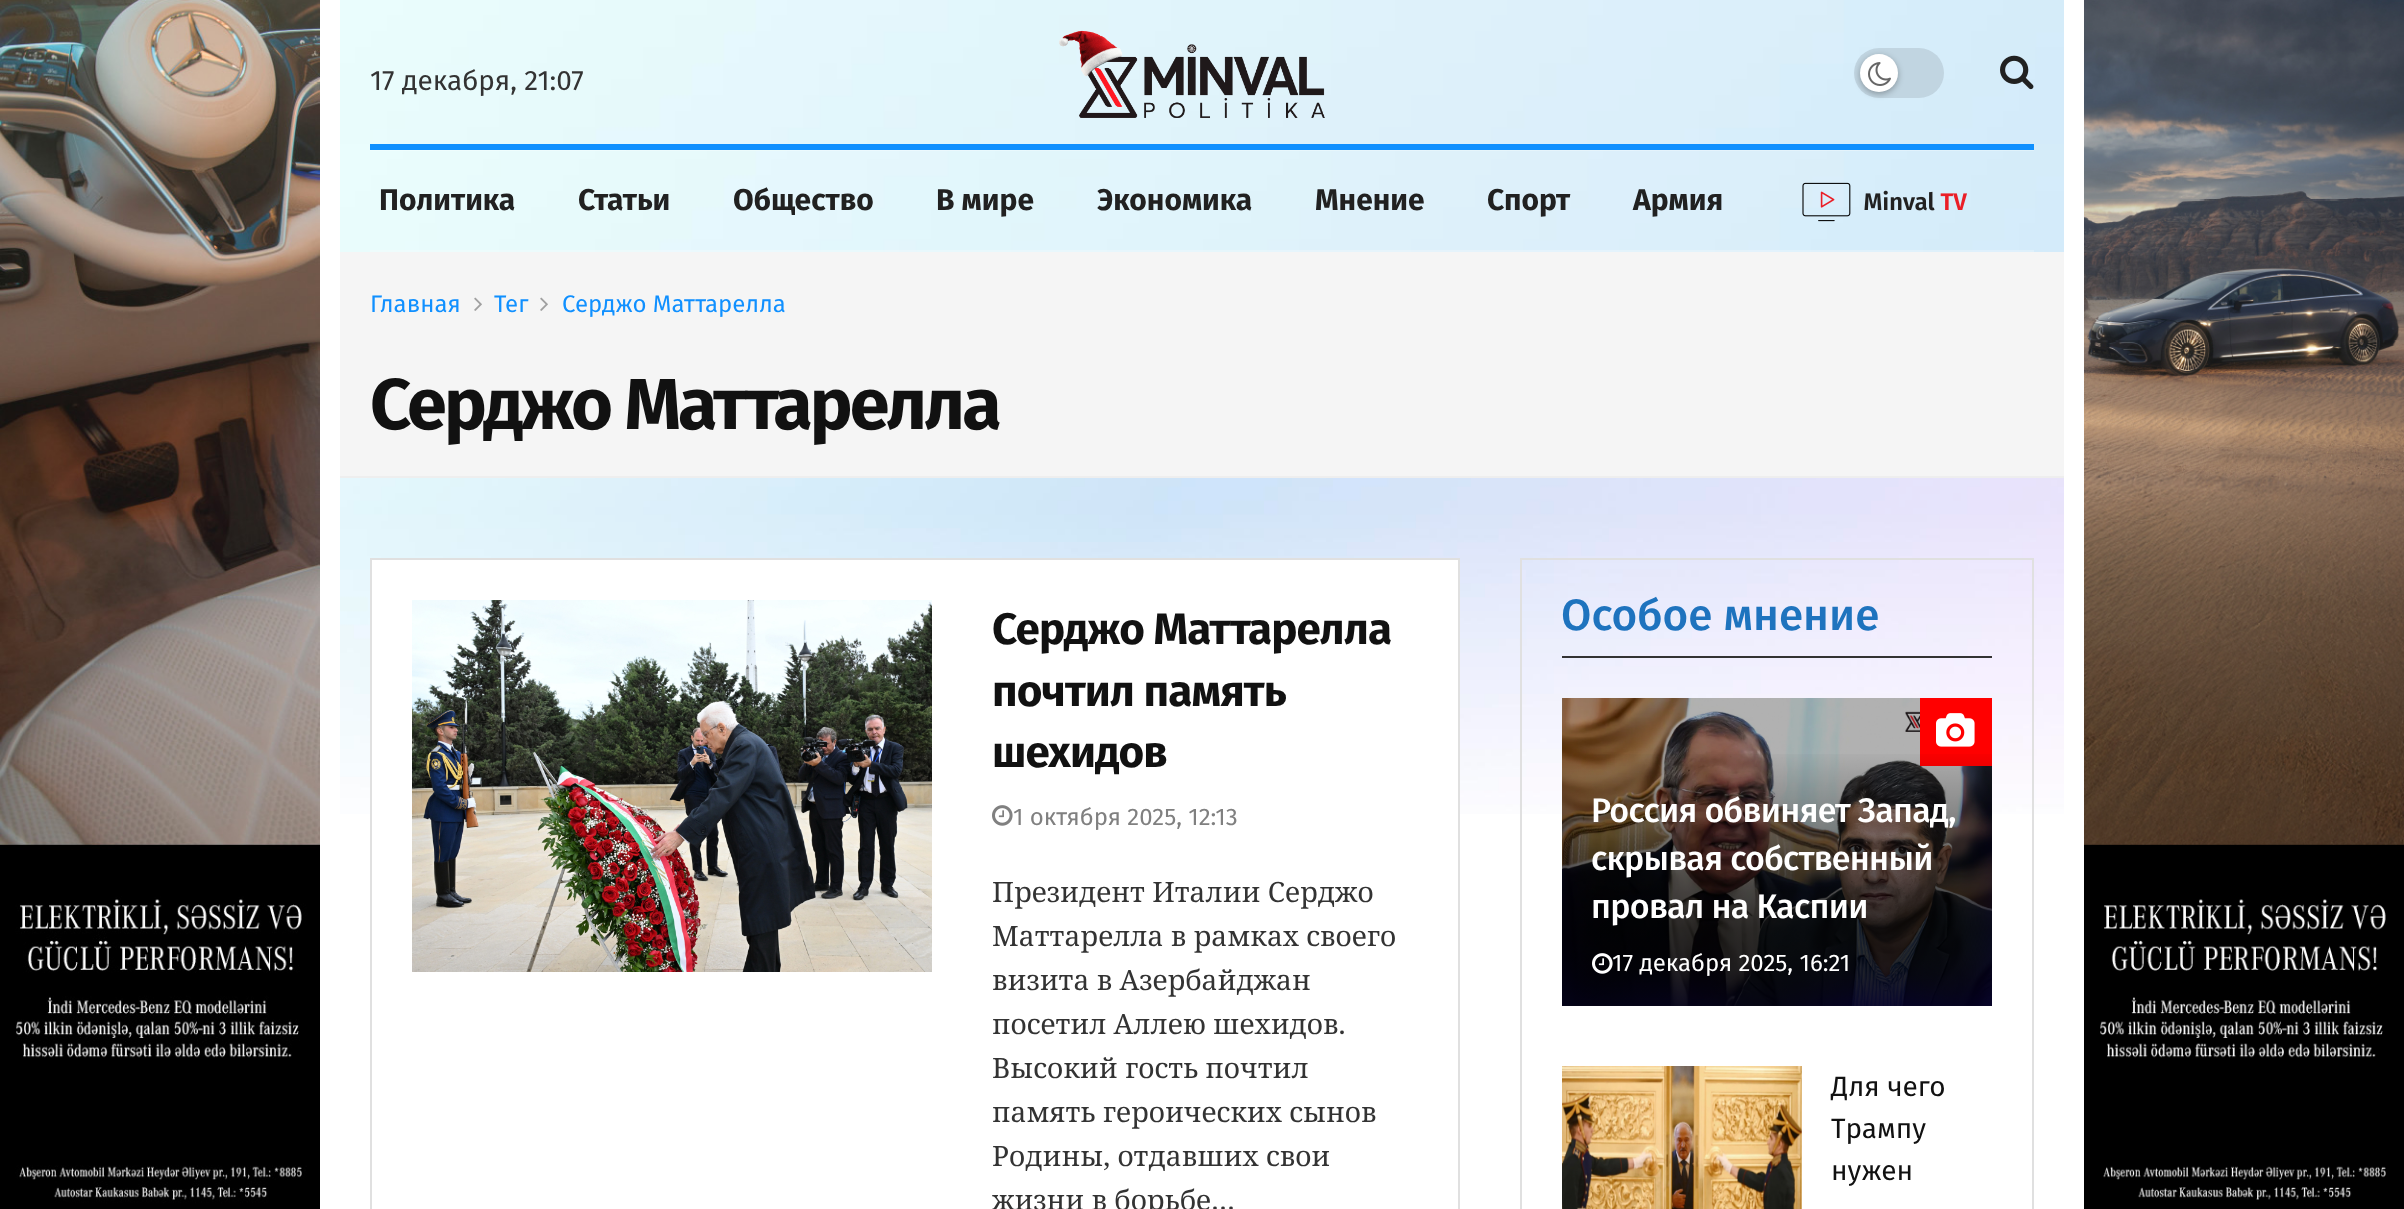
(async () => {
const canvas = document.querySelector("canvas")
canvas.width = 2404
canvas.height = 1209
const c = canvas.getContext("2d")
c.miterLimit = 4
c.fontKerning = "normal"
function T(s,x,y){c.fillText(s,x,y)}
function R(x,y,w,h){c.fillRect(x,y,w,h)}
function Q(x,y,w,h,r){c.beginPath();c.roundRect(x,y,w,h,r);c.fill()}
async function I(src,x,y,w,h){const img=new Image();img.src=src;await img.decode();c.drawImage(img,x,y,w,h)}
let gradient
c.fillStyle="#fff"
R(0,0,2404,1209)
await I("1.png",0,0,320,1209)
await I("2.png",2084,0,320,1209)
await I("3.png",340,0,1724,144)
c.font="28px Fira Sans"
c.fillStyle="#333"
T("17 декабря, 21:07",370,90)
await I("4.png",1059,30,266,88)
c.fillStyle="#c1d5e1"
Q(1854,48,90,50,25)
c.fillStyle="#0000004d"
c.filter="blur(3px)"
c.beginPath()
c.roundRect(1860,56,38,38,19)
c.fill()
c.filter="none"
c.fillStyle="#fff"
c.beginPath()
c.arc(1879,73,19,0,7)
c.fill()
await I("5.png",1868,62,23,24)
await I("6.png",2000,55,34,35)
await I("7.png",340,144,1724,108)
await I("8.png",370,150,1664,1)
c.fillStyle="#1090ff"
R(370,144,1664,6)
c.fillStyle="#ffffff3d"
R(370,250,1664,2)
c.font="bold 30px Fira Sans"
c.fillStyle="#212121"
T("Политика",379,210)
T("Статьи",578,210)
T("Общество",733,210)
T("В мире",936,210)
T("Экономика",1097,210)
T("Мнение",1315,210)
T("Спорт",1487,210)
T("Армия",1633,210)
await I("9.png",1802,182,165,40)
await I("10.png",340,478,1724,336)
c.fillStyle="#f5f5f5"
R(340,252,1724,224)
c.fillStyle="#eee"
R(340,476,1724,2)
c.font="24px Fira Sans"
c.fillStyle="#1090ff"
T("Главная",370,312)
await I("11.png",474,297,8,14)
T("Тег",494,312)
await I("11.png",540,297,8,14)
T("Серджо Маттарелла",562,312)
c.letterSpacing="-2.9px"
c.font="bold 72px Fira Sans"
c.fillStyle="#111"
T("Серджо Маттарелла",370,429)
c.fillStyle="#fff"
R(372,560,1086,254)
c.strokeStyle="#e0e0e0"
c.lineWidth=2
c.strokeRect(371,559,1088,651)
await I("12.png",412,600,520,372)
c.letterSpacing="-0.9px"
c.font="bold 44px Fira Sans"
c.fillStyle="#111"
T("Серджо Маттарелла",992,644)
T("почтил память",992,706)
T("шехидов",992,767)
await I("13.png",992,805,21,21)
c.letterSpacing="0px"
c.font="24px Fira Sans"
c.fillStyle="#808080"
T("1 октября 2025, 12:13",1013,825)
c.font="28px Noto Serif"
c.fillStyle="#333"
T("Президент Италии Серджо",992,902)
T("Маттарелла в рамках своего",992,946)
T("визита в Азербайджан",992,990)
T("посетил Аллею шехидов.",992,1034)
T("Высокий гость почтил",992,1078)
T("память героических сынов",992,1122)
T("Родины, отдавших свои",992,1166)
T("жизни в борьбе…",992,1210)
c.strokeRect(1521,559,512,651)
R(1562,656,430,2)
c.font="500 44px Fira Sans"
c.fillStyle="#1e73be"
T("Особое мнение",1561,630)
await I("14.png",1562,698,430,308)
c.fillStyle="#0000004d"
R(1562,698,430,308)
c.fillStyle="#f00"
R(1920,698,72,68)
await I("15.png",1936,713,39,34)
gradient = c.createLinearGradient(1777,748,1777,1006)
gradient.addColorStop(0,"#00000000")
gradient.addColorStop(.7,"#000000a6")
c.fillStyle = gradient
R(1562,754,430,252)
c.letterSpacing="-0.7px"
c.font="500 34px Fira Sans"
c.fillStyle="#fff"
T("Россия обвиняет Запад,",1591,822)
T("скрывая собственный",1591,870)
T("провал на Каспии",1591,918)
await I("16.png",1592,953,21,21)
c.letterSpacing="0px"
c.font="24px Fira Sans"
T("17 декабря 2025, 16:21",1612,971)
await I("17.png",1562,1066,240,143)
c.font="28px Fira Sans"
c.fillStyle="#111"
T("Для чего",1831,1096)
T("Трампу",1831,1138)
T("нужен",1831,1180)
})()
